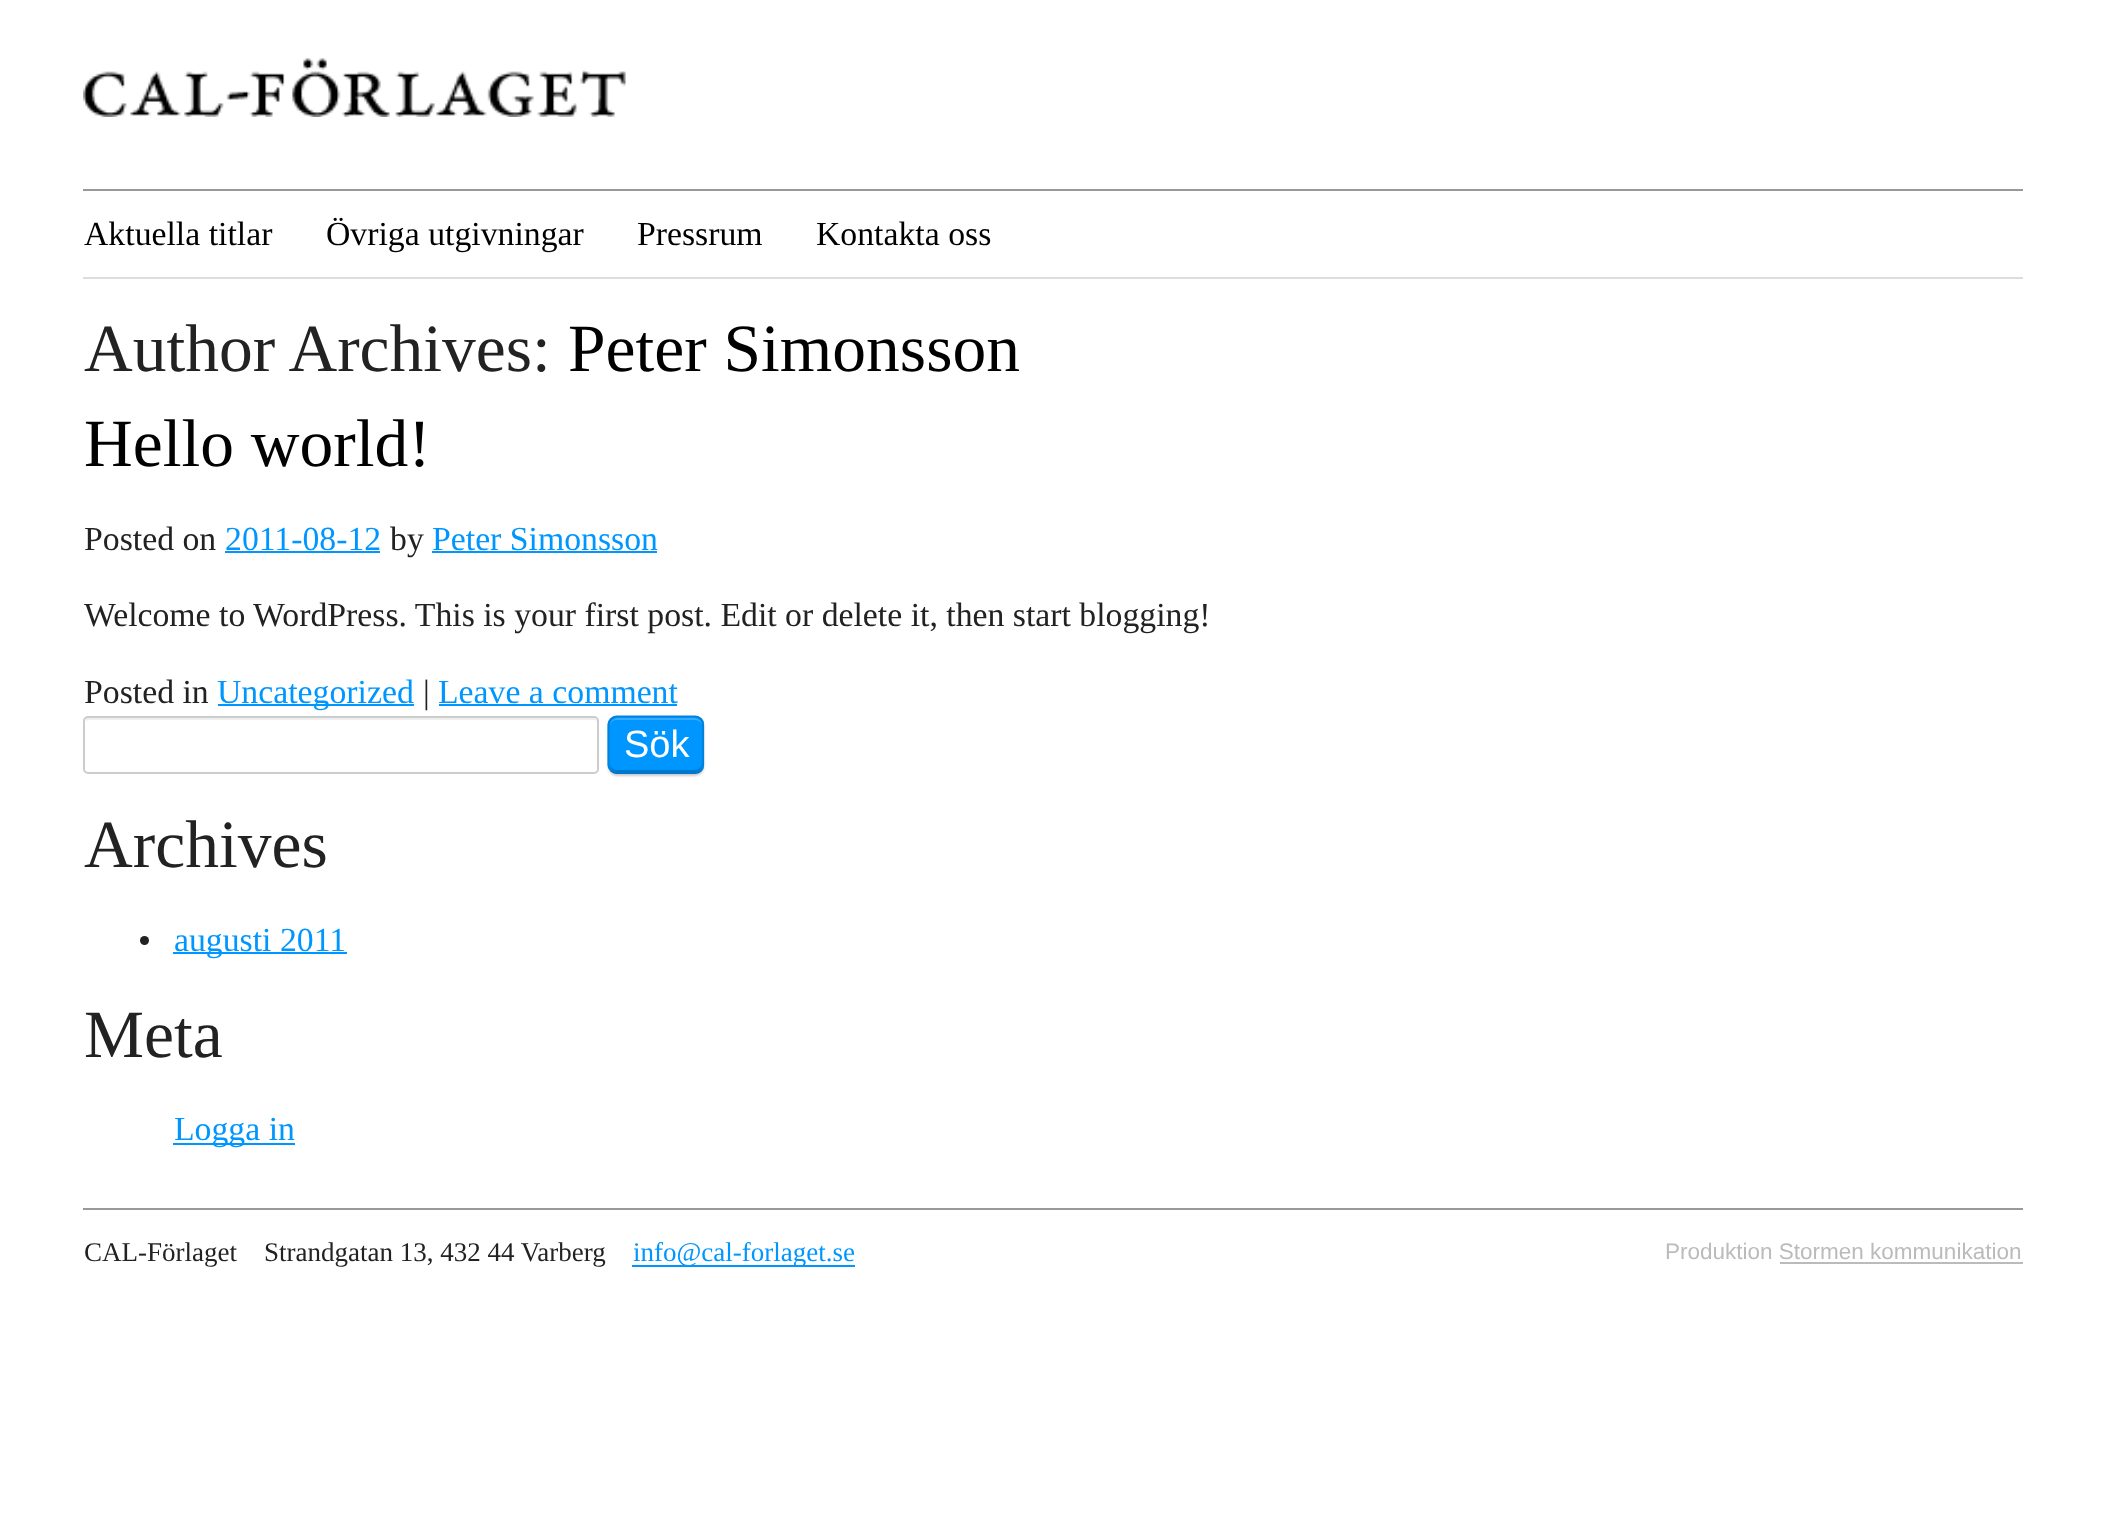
(async () => {
const canvas = document.querySelector("canvas")
canvas.width = 2106
canvas.height = 1514
const c = canvas.getContext("2d")
c.miterLimit = 4
c.fontKerning = "normal"
function T(s,x,y){c.fillText(s,x,y)}
function R(x,y,w,h){c.fillRect(x,y,w,h)}
function Q(x,y,w,h,r){c.beginPath();c.roundRect(x,y,w,h,r);c.fill()}
async function I(src,x,y,w,h){const img=new Image();img.src=src;await img.decode();c.drawImage(img,x,y,w,h)}
let path
c.fillStyle="#fff"
R(0,0,2106,1514)
await I("1.png",83,58,543,59)
c.fillStyle="#999"
R(83,189,1940,2)
c.fillStyle="#ddd"
R(83,277,1940,2)
c.font="33.75px Liberation Serif"
c.fillStyle="#000"
T("Aktuella titlar",84,245)
T("Övriga utgivningar",326,245)
T("Pressrum",637,245)
T("Kontakta oss",816,245)
c.font="67.5px Liberation Serif"
c.fillStyle="#222"
T("Author Archives:",84,371)
c.fillStyle="#000"
T("Peter Simonsson",568,371)
T("Hello world!",84,466)
c.font="33.75px Liberation Serif"
c.fillStyle="#222"
T("Posted on",84,550)
c.fillStyle="#0096ff"
T("2011-08-12",225,550)
R(225,551,155,2)
c.fillStyle="#222"
T("by",390,550)
c.fillStyle="#0096ff"
T("Peter Simonsson",432,550)
R(432,551,225,2)
c.fillStyle="#222"
T("Welcome to WordPress. This is your first post. Edit or delete it, then start blogging!",84,626)
T("Posted in",84,703)
c.fillStyle="#0096ff"
R(218,704,196,2)
T("Uncategorized",217,703)
c.fillStyle="#222"
T("|",423,703)
c.fillStyle="#0096ff"
T("Leave a comment",438,703)
R(439,704,238,2)
c.fillStyle="#eee"
path = new Path2D("M88 720h506c1 0 2 1 2 2c0-2 0-4-2-4h-507l-1 1v3c0-1 1-2 2-2z")
c.fill(path)
c.beginPath()
c.roundRect(84,717,514,56,4)
c.strokeStyle="#ccc"
c.lineWidth=2
c.stroke()
c.fillStyle="#ccc"
c.filter="blur(1px)"
c.beginPath()
c.roundRect(608,718,96,58,9)
c.fill()
c.filter="none"
c.fillStyle="#0096ff"
Q(608,716,96,58,9)
c.fillStyle="#33abff"
path = new Path2D("M616 720h79c4 0 7 3 7 7c0-12-11-9-20-9h-52c-9 0-20-3-20 9c0-4 3-7 6-7z")
c.fill(path)
c.fillStyle="#0078cc"
path = new Path2D("M610 763c0 12 11 9 20 9h52c9 0 20 3 20-9c0 3-3 7-7 7h-79c-3 0-6-4-6-7z")
c.fill(path)
path = new Path2D("M701 770.5c-1.5 1.5-3.5 2.5-6 2.5h-78.5c-2 0-4-1-5.5-2.5")
c.strokeStyle="#0077ca"
c.lineWidth=2.2
c.stroke(path)
path = new Path2D("M611 770.5c-1.5-1.5-2.5-3.5-2.5-5.5v-40.5c0-2 1-4 2.5-5.5c1.5-1.5 3.5-2.5 5.5-2.5h78.5c2.5 0 4.5 1 6 2.5c1.5 1.5 2 3.5 2 5.5v40.5c0 2-.5 4-2 5.5")
c.strokeStyle="#0083de"
c.stroke(path)
c.font="38px Liberation Sans"
c.fillStyle="#fff"
T("Sök",624,757)
c.font="67.5px Liberation Serif"
c.fillStyle="#222"
T("Archives",84,867)
c.beginPath()
c.arc(144.5,940.5,4.5,0,7)
c.fill()
c.fillStyle="#0096ff"
R(173,952,174,2)
c.font="33.75px Liberation Serif"
T("augusti 2011",174,951)
c.font="67.5px Liberation Serif"
c.fillStyle="#222"
T("Meta",84,1057)
c.fillStyle="#0096ff"
R(173,1143,122,2)
c.font="33.75px Liberation Serif"
T("Logga in",174,1140)
c.fillStyle="#999"
R(83,1208,1940,2)
c.font="27px Liberation Serif"
c.fillStyle="#222"
T("CAL-Förlaget Strandgatan 13, 432 44 Varberg",84,1261)
c.fillStyle="#0096ff"
R(632,1265,223,2)
T("info@cal-forlaget.se",633,1261)
c.font="22.5px Liberation Sans"
c.fillStyle="#bbb"
T("Produktion Stormen kommunikation",1665,1259)
R(1780,1262,243,2)
})()
